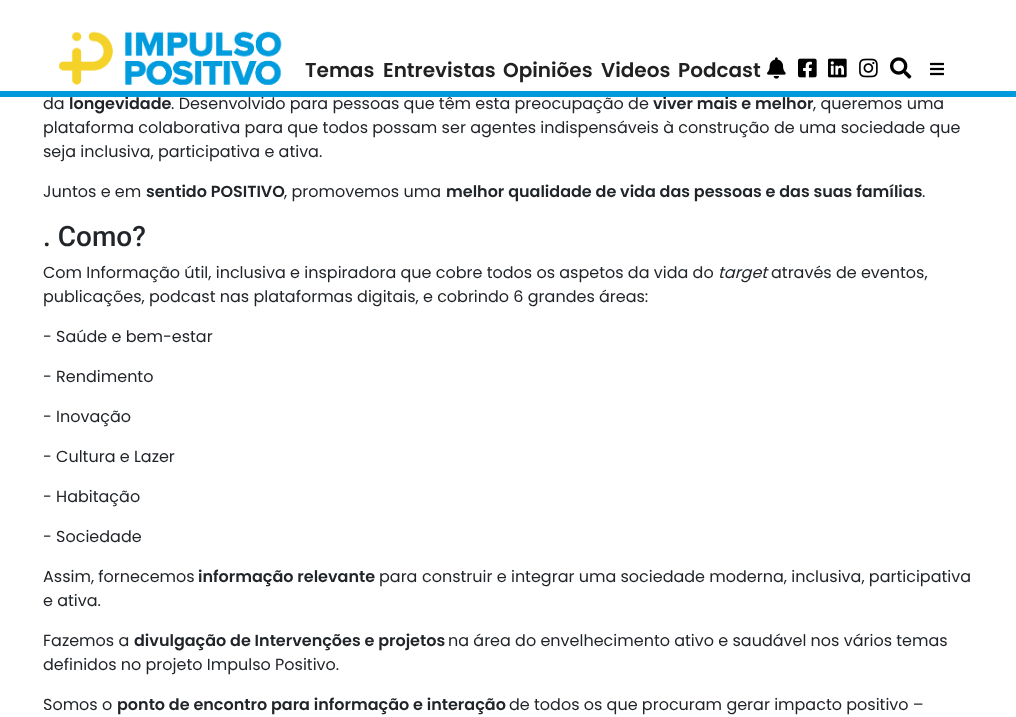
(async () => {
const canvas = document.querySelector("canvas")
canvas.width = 1016
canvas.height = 717
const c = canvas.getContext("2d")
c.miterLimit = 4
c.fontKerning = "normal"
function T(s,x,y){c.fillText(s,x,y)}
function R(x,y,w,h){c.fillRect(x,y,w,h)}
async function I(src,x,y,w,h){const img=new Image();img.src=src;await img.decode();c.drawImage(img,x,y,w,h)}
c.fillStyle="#fff"
R(0,0,1016,717)
await I("1.png",59,31,223,54)
c.font="600 20px Poppins"
c.fillStyle="#212121"
T("Temas",305,77)
T("Entrevistas",383,77)
T("Opiniões",503,77)
T("Videos",601,77)
T("Podcast",678,77)
await I("2.png",767,57,19,22)
await I("3.png",798,58,19,20)
await I("4.png",828,58,19,20)
await I("5.png",859,58,19,20)
await I("6.png",890,57,22,22)
await I("7.png",930,62,14,14)
c.font="600 16px Poppins"
c.fillStyle="#212529"
T("longevidade",69,109)
c.font="16px Poppins"
T(". Desenvolvido para pessoas que têm esta preocupação de",171,109)
c.font="600 16px Poppins"
T("viver mais e melhor",653,109)
c.fillStyle="#0099db"
R(0,91,1016,6)
c.font="16px Poppins"
c.fillStyle="#212529"
T("da",43,109)
T(", queremos uma",813,109)
T("plataforma colaborativa para que todos possam ser agentes indispensáveis à construção de uma sociedade que",43,133)
T("seja inclusiva, participativa e ativa.",43,157)
T("Juntos e em",43,197)
c.font="600 16px Poppins"
T("sentido POSITIVO",146,197)
c.font="16px Poppins"
T(", promovemos uma",284,197)
c.font="600 16px Poppins"
T("melhor qualidade de vida das pessoas e das suas famílias",446,197)
c.font="16px Poppins"
T(".",922,197)
c.font="500 28px Roboto"
T(". Como?",43,246)
c.font="16px Poppins"
T("Com Informação útil, inclusiva e inspiradora que cobre todos os aspetos da vida do",43,278)
c.font="italic 16px Poppins"
T("target",718,278)
c.font="16px Poppins"
T("através de eventos,",771,278)
T("publicações, podcast nas plataformas digitais, e cobrindo 6 grandes áreas:",43,302)
T("- Saúde e bem-estar",43,342)
T("- Rendimento",43,382)
T("- Inovação",43,422)
T("- Cultura e Lazer",43,462)
T("- Habitação",43,502)
T("- Sociedade",43,542)
T("Assim, fornecemos",43,582)
c.font="600 16px Poppins"
T("informação relevante",198,582)
c.font="16px Poppins"
T("para",379,582)
T("construir e integrar uma sociedade moderna, inclusiva, participativa",422,582)
T("e ativa.",43,606)
T("Fazemos a",43,646)
c.font="600 16px Poppins"
T("divulgação de Intervenções e projetos",134,646)
c.font="16px Poppins"
T("na área do envelhecimento ativo e saudável nos vários temas",448,646)
T("definidos no projeto Impulso Positivo.",43,670)
T("Somos o",43,710)
c.font="600 16px Poppins"
T("ponto de encontro para informação e interação",117,710)
c.font="16px Poppins"
T("de todos os que procuram gerar impacto positivo –",509,710)
})()
